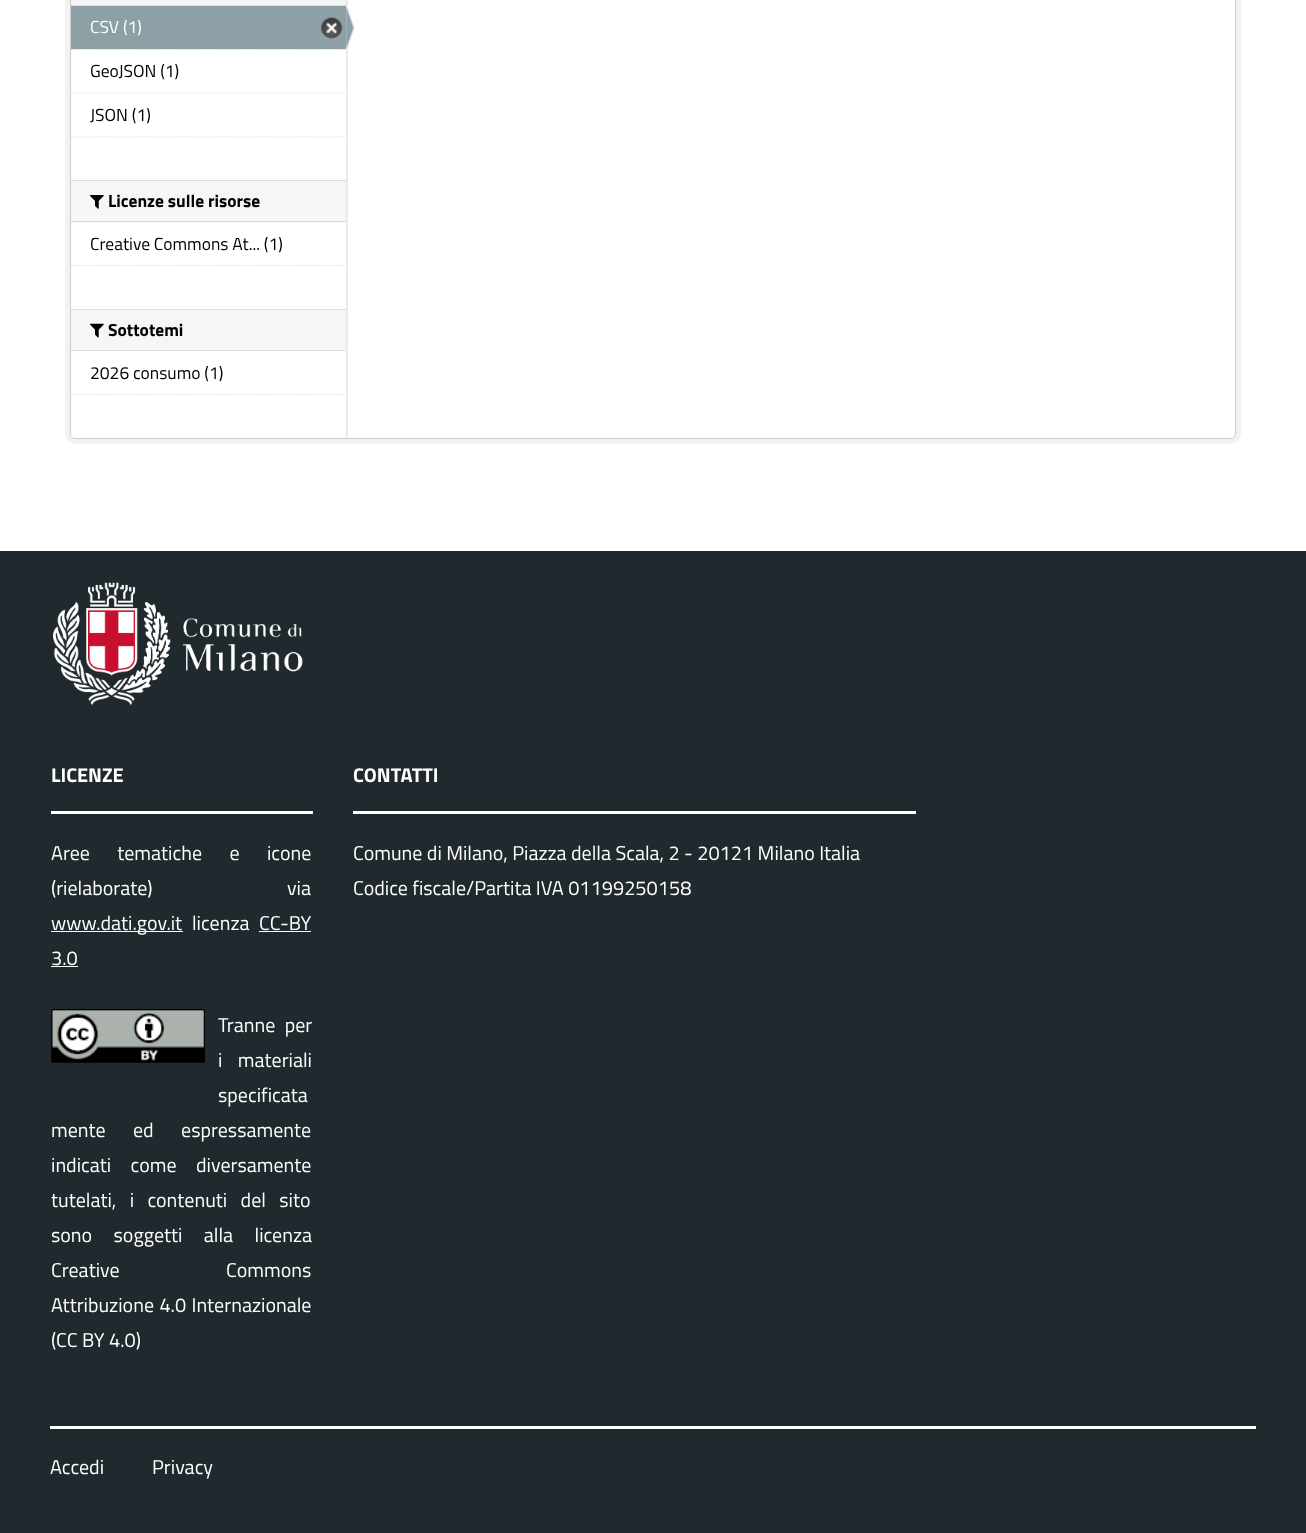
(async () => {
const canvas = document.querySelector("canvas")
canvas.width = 1306
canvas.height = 1533
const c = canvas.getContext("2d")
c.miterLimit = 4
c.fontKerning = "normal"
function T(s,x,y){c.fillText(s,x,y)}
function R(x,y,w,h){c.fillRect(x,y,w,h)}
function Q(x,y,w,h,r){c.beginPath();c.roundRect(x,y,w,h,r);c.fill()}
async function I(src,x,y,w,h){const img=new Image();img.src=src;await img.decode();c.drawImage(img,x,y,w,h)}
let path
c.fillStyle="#fff"
R(0,0,1306,1533)
c.beginPath()
c.roundRect(67.5,-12.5,1171,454,7.5)
c.strokeStyle="#f2f2f2"
c.lineWidth=5
c.stroke()
Q(70,-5,1166,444,5)
await I("1.png",346,0,2,438)
c.beginPath()
c.roundRect(70.5,-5.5,1165,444,4.5)
c.strokeStyle="#ccc"
c.lineWidth=1
c.stroke()
c.fillStyle="#f6f6f6"
R(71,0,275,5)
c.fillStyle="#ddd"
R(71,5,275,1)
c.fillStyle="#f6f6f6"
R(72,49,274,1)
path = new Path2D("M71 49.5h275")
c.strokeStyle="#ddd"
c.lineWidth=1.2
c.setLineDash([1.25,1.25])
c.stroke(path)
c.fillStyle="#8ca0a6"
R(71,6,275,43)
c.font="17.5px Titillium Web"
c.fillStyle="#fff"
T("CSV (1)",90,33)
await I("2.png",321,17,22,22)
await I("3.png",346,7,8,42)
path = new Path2D("M71 93h275")
c.stroke(path)
c.fillStyle="#000"
T("GeoJSON (1)",90,77)
T("JSON (1)",90,121)
path = new Path2D("M71 137h275")
c.stroke(path)
c.fillStyle="#f6f6f6"
R(71,181,275,42)
c.fillStyle="#ddd"
R(71,180,275,1)
R(71,221,275,1)
await I("4.png",90,195,14,14)
c.font="bold 17.5px Titillium Web"
c.fillStyle="#000"
T("Licenze sulle risorse",108,207)
c.font="17.5px Titillium Web"
T("Creative Commons At... (1)",90,250)
path = new Path2D("M71 265.5h275")
c.stroke(path)
c.fillStyle="#f6f6f6"
R(71,310,275,40)
c.fillStyle="#ddd"
R(71,309,275,1)
R(71,350,275,1)
await I("5.png",90,323,14,15)
c.font="bold 17.5px Titillium Web"
c.fillStyle="#000"
T("Sottotemi",108,336)
c.font="17.5px Titillium Web"
T("2026 consumo (1)",90,379)
path = new Path2D("M71 394.5h275")
c.stroke(path)
c.fillStyle="#202a2e"
R(0,551,1306,982)
await I("6.png",53,582,250,124)
c.fillStyle="#fff"
R(51,811,262,3)
c.font="bold 20px Titillium Web"
T("LICENZE",51,782)
R(353,811,563,3)
T("CONTATTI",353,782)
c.wordSpacing="23px"
c.font="20px Titillium Web"
T("Aree tematiche e icone",51,860)
c.wordSpacing="130px"
T("(rielaborate) via",51,895)
R(51,931,132,1)
c.wordSpacing="0px"
T("www.dati.gov.it",51,930)
T("licenza",192,930)
T("CC-BY",259,930)
R(259,931,52,1)
T("3.0",51,965)
R(51,966,27,1)
await I("7.png",51,1009,154,54)
c.wordSpacing="5px"
T("Tranne per",218,1032)
c.wordSpacing="11px"
T("i materiali",218,1067)
c.wordSpacing="0px"
T("specificata",218,1102)
c.wordSpacing="23px"
T("mente ed espressamente",51,1137)
c.wordSpacing="15px"
T("indicati come diversamente",51,1172)
c.wordSpacing="9px"
T("tutelati, i contenuti del sito",51,1207)
c.wordSpacing="17px"
T("sono soggetti alla licenza",51,1242)
c.wordSpacing="102px"
T("Creative Commons",51,1277)
c.wordSpacing="1px"
T("Attribuzione 4.0 Internazionale",51,1312)
c.wordSpacing="0px"
T("(CC BY 4.0)",51,1347)
T("Comune di Milano, Piazza della Scala, 2 - 20121 Milano Italia",353,860)
T("Codice fiscale/Partita IVA 01199250158",353,895)
R(50,1426,1206,3)
T("Accedi",50,1474)
T("Privacy",152,1474)
})()
